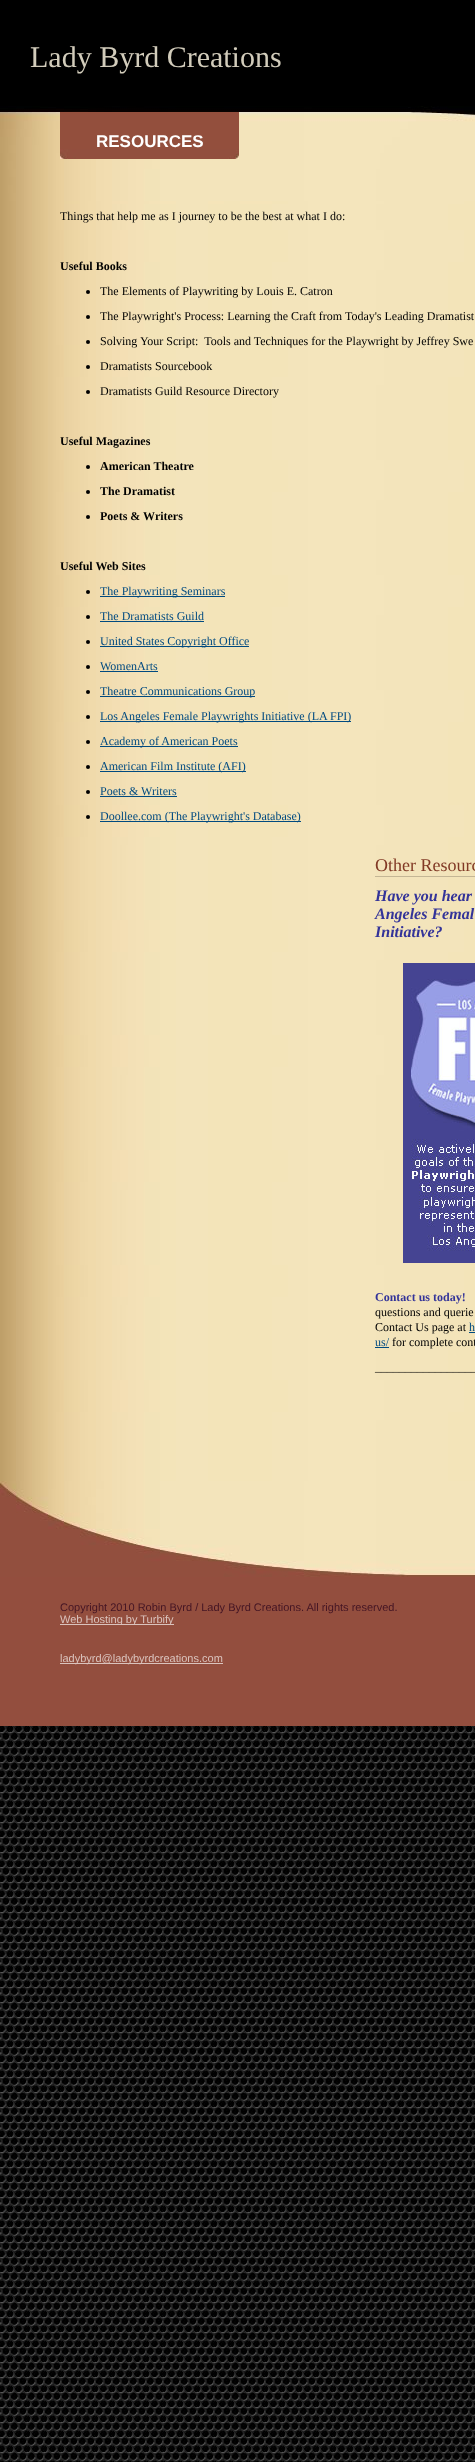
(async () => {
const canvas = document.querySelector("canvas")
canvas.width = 475
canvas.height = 2462
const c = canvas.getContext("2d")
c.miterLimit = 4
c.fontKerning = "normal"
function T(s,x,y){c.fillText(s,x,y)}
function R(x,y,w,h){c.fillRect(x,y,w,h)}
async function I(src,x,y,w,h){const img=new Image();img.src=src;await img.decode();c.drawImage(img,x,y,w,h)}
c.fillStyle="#fff"
R(0,0,475,2462)
await I("1.png",0,1726,475,736)
await I("2.png",0,204,475,1277)
c.fillStyle="#000"
R(0,0,475,106)
await I("3.png",0,106,475,98)
c.font="30px Liberation Serif"
c.fillStyle="#d2ccbb"
T("Lady Byrd Creations",30,67)
c.fillStyle="#934f3d"
R(60,112,179,37)
await I("4.png",60,149,179,10)
c.font="bold 17px Liberation Sans"
c.fillStyle="#fff"
T("RESOURCES",96,147)
c.font="12px Liberation Serif"
c.fillStyle="#000"
T("Things that help me as I journey to be the best at what I do:",60,220)
c.font="bold 12px Liberation Serif"
T("Useful Books",60,270)
c.beginPath()
c.arc(88,292,2,0,7)
c.fill()
c.font="12px Liberation Serif"
T("The Elements of Playwriting by Louis E. Catron",100,295)
c.beginPath()
c.arc(88,317,2,0,7)
c.fill()
T("The Playwright's Process: Learning the Craft from Today's Leading Dramatist",100,320)
c.beginPath()
c.arc(88,342,2,0,7)
c.fill()
T("Solving Your Script:  Tools and Techniques for the Playwright by Jeffrey Swe",100,345)
c.beginPath()
c.arc(88,367,2,0,7)
c.fill()
T("Dramatists Sourcebook",100,370)
c.beginPath()
c.arc(88,392,2,0,7)
c.fill()
T("Dramatists Guild Resource Directory",100,395)
c.font="bold 12px Liberation Serif"
T("Useful Magazines",60,445)
c.beginPath()
c.arc(88,467,2,0,7)
c.fill()
T("American Theatre",100,470)
c.beginPath()
c.arc(88,492,2,0,7)
c.fill()
T("The Dramatist",100,495)
c.beginPath()
c.arc(88,517,2,0,7)
c.fill()
T("Poets & Writers",100,520)
T("Useful Web Sites",60,570)
c.beginPath()
c.arc(88,592,2,0,7)
c.fill()
c.fillStyle="#004a80"
R(100,596,125,1)
c.font="12px Liberation Serif"
T("The Playwriting Seminars",100,595)
c.fillStyle="#000"
c.beginPath()
c.arc(88,617,2,0,7)
c.fill()
c.fillStyle="#004a80"
T("The Dramatists Guild",100,620)
R(100,621,104,1)
c.fillStyle="#000"
c.beginPath()
c.arc(88,642,2,0,7)
c.fill()
c.fillStyle="#004a80"
R(100,646,149,1)
T("United States Copyright Office",100,645)
c.fillStyle="#000"
c.beginPath()
c.arc(88,667,2,0,7)
c.fill()
c.fillStyle="#004a80"
T("WomenArts",100,670)
R(100,671,58,1)
c.fillStyle="#000"
c.beginPath()
c.arc(88,692,2,0,7)
c.fill()
c.fillStyle="#004a80"
R(100,696,155,1)
T("Theatre Communications Group",100,695)
c.fillStyle="#000"
c.beginPath()
c.arc(88,717,2,0,7)
c.fill()
c.fillStyle="#004a80"
R(100,721,251,1)
T("Los Angeles Female Playwrights Initiative (LA FPI)",100,720)
c.fillStyle="#000"
c.beginPath()
c.arc(88,742,2,0,7)
c.fill()
c.fillStyle="#004a80"
R(100,746,138,1)
T("Academy of American Poets",100,745)
c.fillStyle="#000"
c.beginPath()
c.arc(88,767,2,0,7)
c.fill()
c.fillStyle="#004a80"
R(100,771,146,1)
T("American Film Institute (AFI)",100,770)
c.fillStyle="#000"
c.beginPath()
c.arc(88,792,2,0,7)
c.fill()
c.fillStyle="#004a80"
T("Poets & Writers",100,795)
R(100,796,77,1)
c.fillStyle="#000"
c.beginPath()
c.arc(88,817,2,0,7)
c.fill()
c.fillStyle="#004a80"
R(100,821,201,1)
T("Doollee.com (The Playwright's Database)",100,820)
c.fillStyle="#c4b695"
R(375,876,100,1)
c.font="18px Liberation Serif"
c.fillStyle="#813925"
T("Other Resourc",375,871)
c.font="italic bold 16px Liberation Serif"
c.fillStyle="#339"
T("Have you hear",375,901)
T("Angeles Femal",375,919)
T("Initiative?",375,937)
await I("5.png",403,963,72,300)
c.font="bold 12px Liberation Serif"
T("Contact us today!",375,1301)
c.font="12px Liberation Serif"
c.fillStyle="#000"
T("questions and querie",375,1316)
T("Contact Us page at",375,1331)
c.fillStyle="#004a80"
T("h",469,1331)
R(469,1332,6,1)
T("us/",375,1346)
R(375,1347,14,1)
c.fillStyle="#000"
T("for complete cont",392,1346)
T("_________________",375,1371)
c.fillStyle="#934e3e"
R(0,1577,475,149)
await I("6.png",0,1481,475,96)
c.font="11px Liberation Sans"
c.fillStyle="#441524"
T("Copyright 2010 Robin Byrd / Lady Byrd Creations. All rights reserved.",60,1611)
c.fillStyle="#dac3bd"
R(60,1624,114,1)
c.save()
c.beginPath()
c.rect(60,1601,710,24)
c.clip()
T("Web Hosting by Turbify",60,1623)
c.restore()
R(60,1663,163,1)
T("ladybyrd@ladybyrdcreations.com",60,1662)
})()
